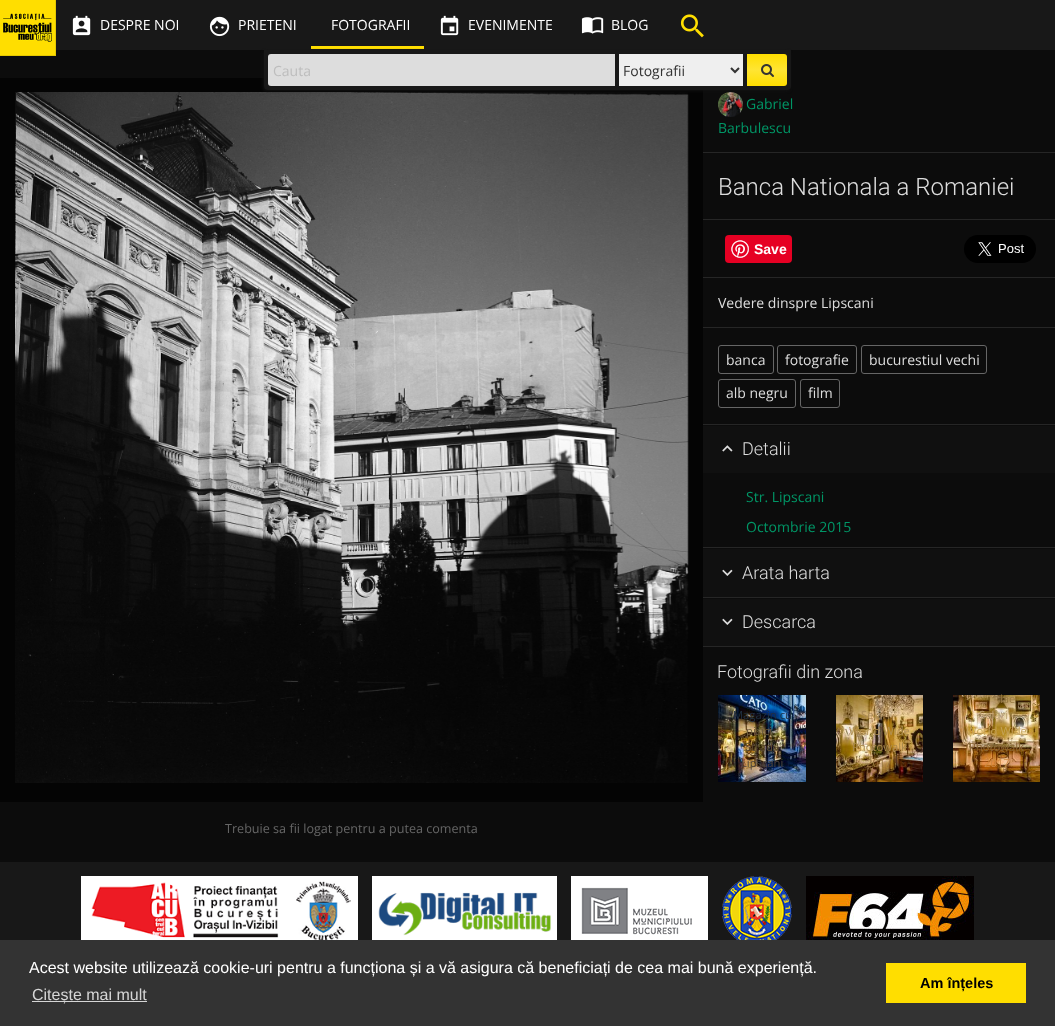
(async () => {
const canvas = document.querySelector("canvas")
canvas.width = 1055
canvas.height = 1026
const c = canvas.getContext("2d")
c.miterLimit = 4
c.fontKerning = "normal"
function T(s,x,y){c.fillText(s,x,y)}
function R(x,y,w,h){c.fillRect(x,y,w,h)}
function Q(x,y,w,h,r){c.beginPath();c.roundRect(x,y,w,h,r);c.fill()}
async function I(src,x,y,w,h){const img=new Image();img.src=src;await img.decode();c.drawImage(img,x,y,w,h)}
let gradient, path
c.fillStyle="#0c0c0c"
R(0,0,1055,1026)
c.fillStyle="#181818"
R(56,0,999,50)
c.fillStyle="#ffde00"
R(0,0,55,55)
await I("1.png",2,13,51,29)
c.fillStyle="#e6c800"
R(55,0,1,56)
R(0,55,56,1)
await I("2.png",72,15,19,21)
c.font="14px Open Sans"
c.fillStyle="#fff"
T("DESPRE NOI",100,30)
await I("3.png",209,16,21,21)
T("PRIETENI",238,30)
c.fillStyle="#ffde00"
R(311,46,113,3)
c.fillStyle="#fff"
T("FOTOGRAFII",331,30)
await I("4.png",440,15,19,21)
T("EVENIMENTE",468,30)
await I("5.png",581,17,23,17)
T("BLOG",611,30)
await I("6.png",680,14,24,24)
c.fillStyle="#040404"
R(0,78,703,724)
await I("8.png",15,92,674,691)
await I("9.png",718,92,25,25)
c.save()
path = new Path2D("M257 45h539v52h-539zm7 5h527v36c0 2-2 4-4 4h-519c-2 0-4-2-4-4z")
c.clip(path,"evenodd")
c.fillStyle="#111"
c.filter="blur(1.5px)"
c.beginPath()
c.roundRect(263,51,527,40,4)
c.fill()
c.filter="none"
c.restore()
c.fillStyle="#191919f2"
c.beginPath()
c.roundRect(264,50,527,40,[0,0,4,4])
c.fill()
c.fillStyle="#ddd"
c.beginPath()
c.roundRect(268,54,347,32,[3,0,0,3])
c.fill()
c.fillStyle="#bdbdbd"
T("Cauta",273,76)
c.fillStyle="#efefef"
R(619,54,124,32)
path = new Path2D("M731 68l4 4l4-4")
c.strokeStyle="#333"
c.lineWidth=2
c.stroke(path)
c.fillStyle="#333"
T("Fotografii",623,76)
gradient = c.createLinearGradient(767,54,767,86)
gradient.addColorStop(0,"#ffde00")
gradient.addColorStop(.5,"#ffe533")
gradient.addColorStop(1,"#ffde00")
c.fillStyle = gradient
c.beginPath()
c.roundRect(747,54,40,32,[0,3,3,0])
c.fill()
await I("7.png",761,64,13,13)
c.fillStyle="#009666"
T("Gabriel",746,109)
T("Barbulescu",718,133)
c.fillStyle="#262626"
R(703,152,352,1)
c.font="300 24px Roboto"
c.fillStyle="#ddd"
T("Banca Nationala a Romaniei",718,195)
c.fillStyle="#262626"
R(703,219,352,1)
c.fillStyle="#e60023"
Q(725,235,67,28,4)
await I("10.png",731,240,18,18)
c.font="bold 14px Liberation Sans"
c.fillStyle="#fff"
T("Save",754,254)
await I("11.png",964,235,72,28)
c.fillStyle="#262626"
R(703,277,352,1)
c.font="14px Open Sans"
c.fillStyle="#ddd"
T("Vedere dinspre Lipscani",718,308)
c.fillStyle="#262626"
R(703,327,352,1)
c.beginPath()
c.roundRect(718.5,345.5,55,28,2.5)
c.strokeStyle="#666"
c.lineWidth=1
c.stroke()
c.fillStyle="#ddd"
T("banca",726,365)
c.beginPath()
c.roundRect(777.5,345.5,79,28,2.5)
c.stroke()
T("fotografie",785,365)
c.beginPath()
c.roundRect(861.5,345.5,125,28,2.5)
c.stroke()
T("bucurestiul vechi",869,365)
c.beginPath()
c.roundRect(718.5,379.5,77,28,2.5)
c.stroke()
T("alb negru",726,398)
c.beginPath()
c.roundRect(800.5,379.5,39,28,2.5)
c.stroke()
T("film",808,398)
c.fillStyle="#262626"
R(703,424,352,1)
c.fillStyle="#101010"
R(703,426,352,47)
await I("12.png",722,445,11,7)
c.font="300 18px Roboto"
c.fillStyle="#ddd"
T("Detalii",742,455)
c.font="14px Open Sans"
c.fillStyle="#009666"
T("Str. Lipscani",746,502)
T("Octombrie 2015",746,532)
c.fillStyle="#262626"
R(703,547,352,1)
c.fillStyle="#101010"
R(703,549,352,48)
await I("13.png",722,569,11,7)
c.font="300 18px Roboto"
c.fillStyle="#ddd"
T("Arata harta",742,579)
c.fillStyle="#262626"
R(703,597,352,1)
c.fillStyle="#101010"
R(703,599,352,47)
await I("13.png",722,618,11,7)
c.fillStyle="#ddd"
T("Descarca",742,628)
c.fillStyle="#262626"
R(703,646,352,1)
c.fillStyle="#ddd"
T("Fotografii din zona",717,678)
await I("14.png",718,695,88,87)
c.font="11.25px Open Sans"
c.fillStyle="#202f41"
T("Magazin cu",733,719)
c.fillStyle="#6b593a"
T("pisici -",746,735)
c.fillStyle="#5d4b30"
T("Strada",745,751)
c.fillStyle="#4e443c"
T("Lipscani",741,767)
await I("15.png",836,695,87,87)
c.fillStyle="#a98955"
T("Șelari -",861,719)
c.fillStyle="#b09053"
T("World Wide",849,735)
c.fillStyle="#a8884b"
T("Photowalk",852,751)
c.fillStyle="#977340"
T("2017",866,767)
await I("16.png",953,695,87,87)
c.fillStyle="#997b44"
T("lae",1000,703)
c.fillStyle="#ba9f70"
T("Șelari -",979,719)
c.fillStyle="#c5a359"
T("World Wide",966,735)
c.fillStyle="#8a6535"
T("Photowalk",969,751)
c.fillStyle="#cd8844"
T("2017",984,767)
c.font="12.6px Open Sans"
c.fillStyle="#666"
T("Trebuie sa fii logat pentru a putea comenta",225,833)
c.fillStyle="#181818"
R(0,862,1055,78)
await I("17.png",81,876,207,64)
await I("18.png",288,876,70,64)
await I("19.png",372,876,185,64)
await I("20.png",571,876,137,64)
await I("21.png",722,876,70,64)
await I("22.png",806,876,168,64)
c.fillStyle="#333"
R(0,940,1055,86)
c.font="16px Liberation Sans"
c.fillStyle="#fff"
T("Acest website utilizează cookie-uri pentru a funcționa și a vă asigura că beneficiați de cea mai bună experiență.",29,973)
c.fillStyle="#d6d6d6"
R(32,1001,115,1)
T("Citește mai mult",32,1000)
c.fillStyle="#ffde00"
R(886,963,140,40)
c.font="bold 14.5px Liberation Sans"
c.fillStyle="#000"
T("Am înțeles",920,988)
})()
